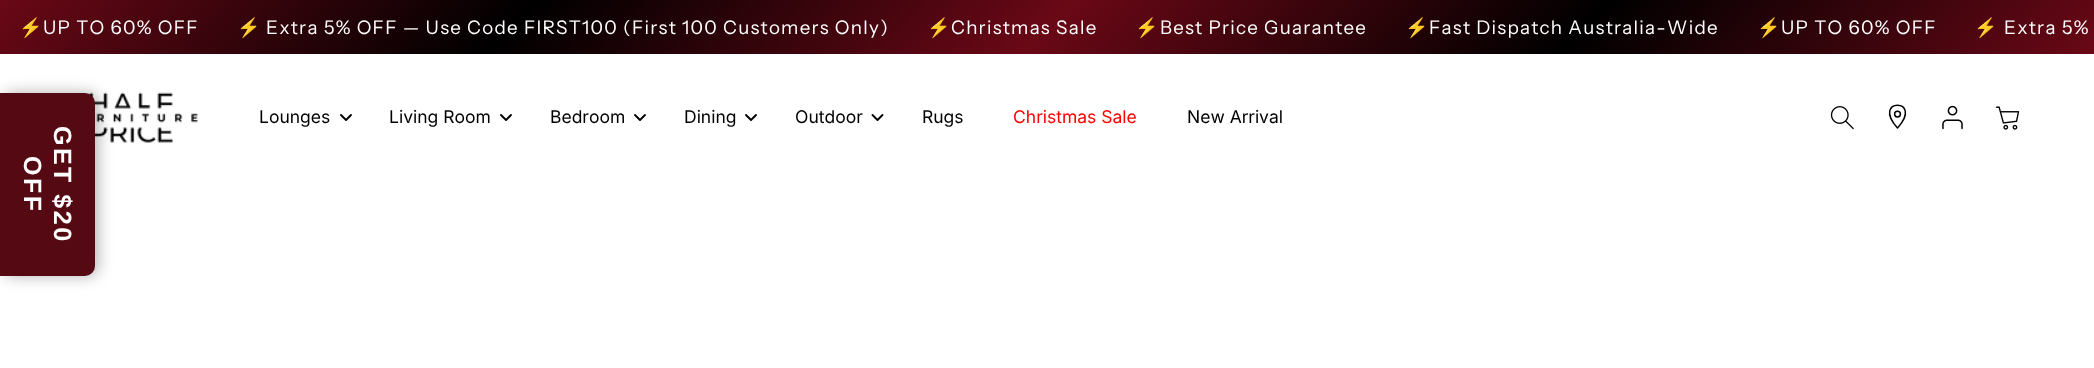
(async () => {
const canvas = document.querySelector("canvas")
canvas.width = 2094
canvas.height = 368
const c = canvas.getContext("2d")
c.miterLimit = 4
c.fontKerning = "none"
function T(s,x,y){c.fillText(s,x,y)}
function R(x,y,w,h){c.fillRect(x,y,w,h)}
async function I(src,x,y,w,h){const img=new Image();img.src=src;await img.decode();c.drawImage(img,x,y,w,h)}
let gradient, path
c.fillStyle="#fff"
R(0,0,2094,368)
gradient = c.createLinearGradient(510,-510,1585,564)
gradient.addColorStop(0,"#6a0816")
gradient.addColorStop(.25,"#000")
gradient.addColorStop(.5,"#6a0816")
gradient.addColorStop(.75,"#000")
gradient.addColorStop(1,"#6a0816")
c.fillStyle = gradient
R(0,0,2094,54)
c.letterSpacing="1.25px"
c.font="18.75px Noto Color Emoji"
c.fillStyle="#fff"
T("⚡",19,34)
c.font="18.75px Instrument Sans"
T("UP TO 60% OFF",43,34)
c.font="18.75px Noto Color Emoji"
T("⚡",237,34)
c.font="18.75px Instrument Sans"
T("Extra 5% OFF — Use Code FIRST100 (First 100 Customers Only)",266,34)
c.font="18.75px Noto Color Emoji"
T("⚡",927,34)
c.font="18.75px Instrument Sans"
T("Christmas Sale",951,34)
c.font="18.75px Noto Color Emoji"
T("⚡",1135,34)
c.font="18.75px Instrument Sans"
T("Best Price Guarantee",1160,34)
c.font="18.75px Noto Color Emoji"
T("⚡",1405,34)
c.font="18.75px Instrument Sans"
T("Fast Dispatch Australia-Wide",1429,34)
c.font="18.75px Noto Color Emoji"
T("⚡",1757,34)
c.font="18.75px Instrument Sans"
T("UP TO 60% OFF",1781,34)
c.font="18.75px Noto Color Emoji"
T("⚡",1974,34)
c.font="18.75px Instrument Sans"
T("Extra 5%",2004,34)
await I("1.png",89,92,109,51)
c.letterSpacing="0px"
c.font="17.5px Inter"
c.fillStyle="#000"
T("Lounges",259,123)
path = new Path2D("M351 115l-5 5l-5-5")
c.strokeStyle="#000"
c.lineWidth=1.9
c.lineCap="round"
c.lineJoin="round"
c.stroke(path)
T("Living Room",389,123)
path = new Path2D("M511 115l-5 5l-5-5")
c.stroke(path)
T("Bedroom",550,123)
path = new Path2D("M645 115l-5 5l-5-5")
c.stroke(path)
T("Dining",684,123)
path = new Path2D("M756 115l-5 5l-5-5")
c.stroke(path)
T("Outdoor",795,123)
path = new Path2D("M882.5 115l-5 5l-5-5")
c.stroke(path)
T("Rugs",922,123)
c.fillStyle="#f00"
T("Christmas Sale",1013,123)
c.fillStyle="#000"
T("New Arrival",1187,123)
await I("2.png",1830,106,24,24)
path = new Path2D("M1897.5 128c27.5-30.5-27.5-30.5 0 0z")
c.lineWidth=1.5
c.stroke(path)
c.beginPath()
c.arc(1897.5,114.1,2.9,0,7)
c.stroke()
await I("3.png",1942,105,21,25)
await I("4.png",1995,106,25,24)
c.fillStyle="#0000004d"
c.filter="blur(7.5px)"
c.beginPath()
c.roundRect(3,93,95,183,10)
c.fill()
c.filter="none"
gradient = c.createLinearGradient(-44,137,234,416)
gradient.addColorStop(0,"#550913")
gradient.addColorStop(.5,"#550913")
gradient.addColorStop(.75,"#000")
gradient.addColorStop(1,"#000")
c.fillStyle = gradient
c.beginPath()
c.roundRect(0,93,95,183,[0,10,10,0])
c.fill()
c.letterSpacing="2.5px"
c.font="bold 25px Liberation Sans"
c.fillStyle="#fff"
c.save()
c.translate(24,156)
c.rotate(90 * Math.PI / 180)
c.fillText("OFF",0,0)
c.restore()
c.save()
c.translate(54,126)
c.rotate(90 * Math.PI / 180)
c.fillText("GET $20",0,0)
c.restore()
})()
